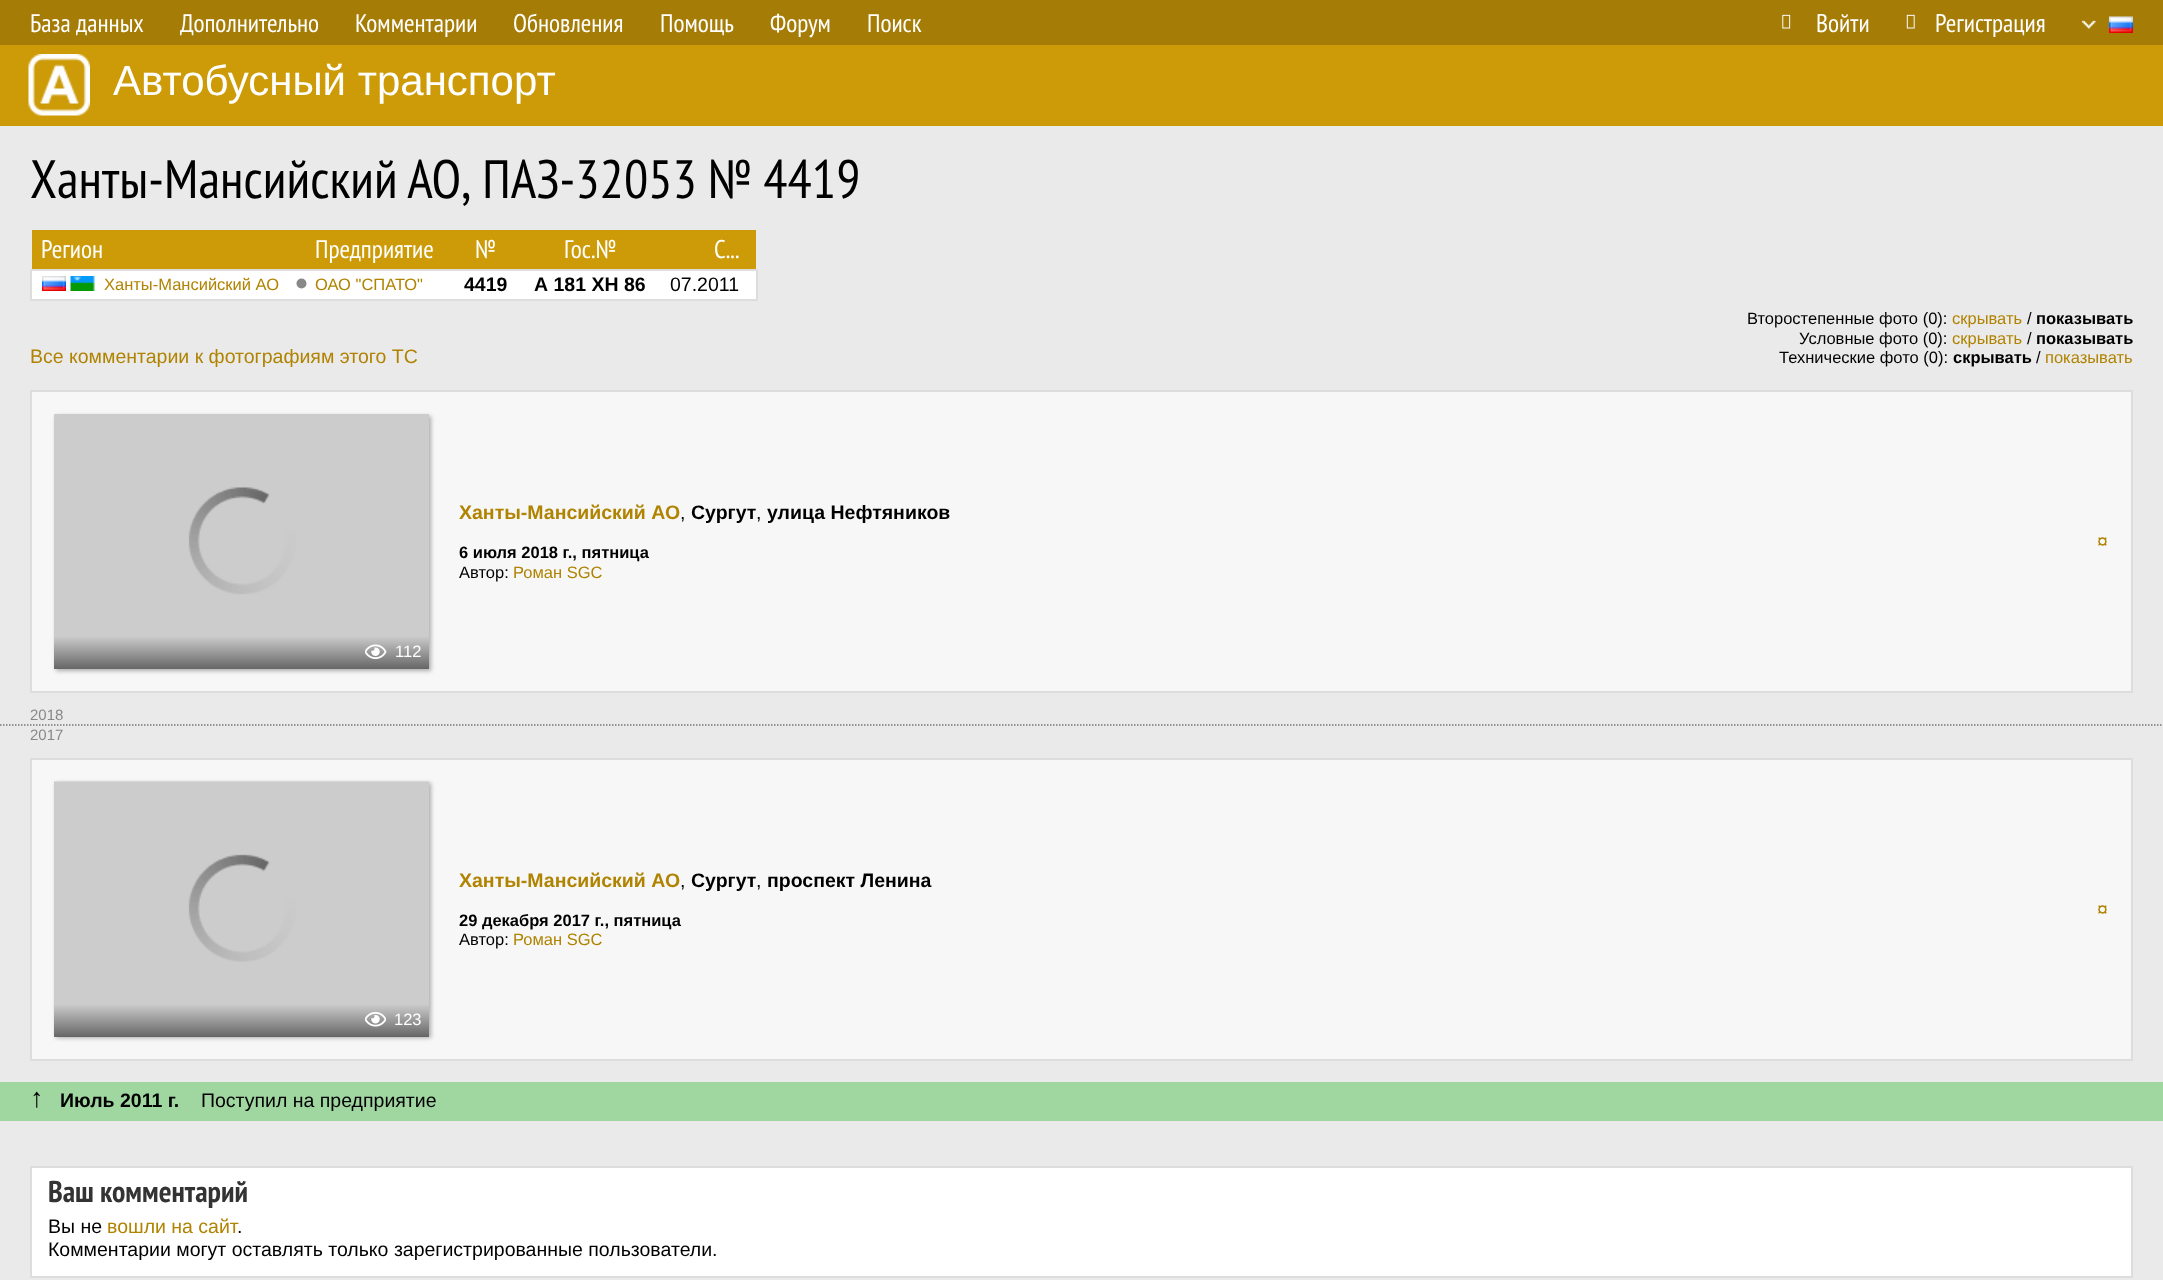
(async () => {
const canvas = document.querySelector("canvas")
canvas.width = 2163
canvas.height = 1280
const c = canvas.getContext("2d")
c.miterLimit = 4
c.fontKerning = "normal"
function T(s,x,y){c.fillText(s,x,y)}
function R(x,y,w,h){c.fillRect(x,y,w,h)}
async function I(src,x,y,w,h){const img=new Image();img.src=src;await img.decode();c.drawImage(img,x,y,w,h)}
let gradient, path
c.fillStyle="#a47c06"
R(0,0,2163,1280)
c.font="25.5px PT Sans Narrow"
c.fillStyle="#fff"
T("База данных",30,32)
T("Дополнительно",180,32)
T("Комментарии",355,32)
T("Обновления",513,32)
T("Помощь",660,32)
T("Форум",770,32)
T("Поиск",867,32)
await I("1.png",1782,14,9,15)
T("Войти",1816,32)
await I("2.png",1906,14,9,15)
T("Регистрация",1935,32)
await I("3.png",2082,20,14,9)
await I("4.png",2109,16,24,17)
c.fillStyle="#cd9b08"
R(0,45,2163,81)
await I("5.png",28,54,62,62)
c.font="42px Liberation Sans"
c.fillStyle="#fff"
T("Автобусный транспорт",113,95)
c.fillStyle="#eaeaea"
R(0,126,2163,1154)
c.wordSpacing="-0.5px"
c.font="54px PT Sans Narrow"
c.fillStyle="#000"
T("Ханты-Мансийский АО, ПАЗ-32053 № 4419",30,198)
c.fillStyle="#cd9b08"
R(32,230,724,39)
c.wordSpacing="0px"
c.font="25.5px PT Sans Narrow"
c.fillStyle="#fff"
T("Регион",41,258)
T("Предприятие",315,258)
T("№",475,258)
T("Гос.№",564,258)
T("С...",714,258)
R(32,271,724,28)
c.fillStyle="#ddd"
R(30,269,728,2)
R(756,269,2,31)
R(30,299,728,2)
R(30,269,2,31)
await I("6.png",42,276,24,15)
await I("7.png",70,276,25,15)
c.font="16.5px Liberation Sans"
c.fillStyle="#b08300"
T("Ханты-Мансийский АО",104,290)
c.fillStyle="#888"
c.beginPath()
c.arc(301.5,283.5,5,0,7)
c.fill()
c.fillStyle="#b08300"
T("ОАО \"CПАТО\"",315,290)
c.font="bold 19.5px Liberation Sans"
c.fillStyle="#000"
T("4419",464,291)
T("А 181 ХН 86",534,291)
c.font="19.5px Liberation Sans"
T("07.2011",670,291)
c.fillStyle="#b08300"
T("Все комментарии к фотографиям этого ТС",30,363)
c.font="16.5px Liberation Sans"
c.fillStyle="#000"
T("Второстепенные фото (0):",1747,324)
c.fillStyle="#b08300"
T("скрывать",1952,324)
c.fillStyle="#000"
T("/",2027,324)
c.font="bold 16.5px Liberation Sans"
T("показывать",2036,324)
c.font="16.5px Liberation Sans"
T("Условные фото (0):",1799,344)
c.fillStyle="#b08300"
T("скрывать",1952,344)
c.fillStyle="#000"
T("/",2027,344)
c.font="bold 16.5px Liberation Sans"
T("показывать",2036,344)
c.font="16.5px Liberation Sans"
T("Технические фото (0):",1779,363)
c.font="bold 16.5px Liberation Sans"
T("скрывать",1953,363)
c.font="16.5px Liberation Sans"
T("/",2036,363)
c.fillStyle="#b08300"
T("показывать",2045,363)
c.fillStyle="#f7f7f7"
c.beginPath()
c.rect(31,391,2101,301)
c.fill()
c.strokeStyle="#ddd"
c.lineWidth=2
c.stroke()
c.font="bold 19.5px Liberation Sans"
c.fillStyle="#b08300"
T("Ханты-Мансийский АО",459,519)
c.font="19.5px Liberation Sans"
c.fillStyle="#000"
T(",",680,519)
c.font="bold 19.5px Liberation Sans"
T("Сургут",691,519)
c.font="19.5px Liberation Sans"
T(",",756,519)
c.font="bold 19.5px Liberation Sans"
T("улица Нефтяников",767,519)
c.font="bold 16.5px Liberation Sans"
T("6 июля 2018 г., пятница",459,558)
c.font="16.5px Liberation Sans"
T("Автор:",459,578)
c.fillStyle="#b08300"
T("Роман SGC",513,578)
c.font="19.5px Liberation Sans"
T("¤",2097,548)
c.fillStyle="#0000004d"
c.filter="blur(2px)"
c.beginPath()
c.rect(56,416,375,255)
c.fill()
c.filter="none"
await I("8.png",54,414,375,222)
gradient = c.createLinearGradient(242,669,242,636)
gradient.addColorStop(0,"#666")
gradient.addColorStop(1,"#ccc")
c.fillStyle = gradient
R(54,636,375,33)
await I("9.png",365,644,22,16)
c.font="16.5px Liberation Sans"
c.fillStyle="#fff"
T("112",395,657)
path = new Path2D("M0 725h2163")
c.strokeStyle="#777"
c.lineWidth=1.5
c.setLineDash([1.5,1.5])
c.stroke(path)
c.font="15px Liberation Sans"
c.fillStyle="#888"
T("2018",30,720)
T("2017",30,740)
c.fillStyle="#f7f7f7"
c.beginPath()
c.rect(31,759,2101,301)
c.fill()
c.strokeStyle="#ddd"
c.lineWidth=2
c.setLineDash([])
c.stroke()
c.font="bold 19.5px Liberation Sans"
c.fillStyle="#b08300"
T("Ханты-Мансийский АО",459,887)
c.font="19.5px Liberation Sans"
c.fillStyle="#000"
T(",",680,887)
c.font="bold 19.5px Liberation Sans"
T("Сургут",691,887)
c.font="19.5px Liberation Sans"
T(",",756,887)
c.font="bold 19.5px Liberation Sans"
T("проспект Ленина",767,887)
c.font="bold 16.5px Liberation Sans"
T("29 декабря 2017 г., пятница",459,926)
c.font="16.5px Liberation Sans"
T("Автор:",459,945)
c.fillStyle="#b08300"
T("Роман SGC",513,945)
c.font="19.5px Liberation Sans"
T("¤",2097,916)
c.fillStyle="#0000004d"
c.filter="blur(2px)"
c.beginPath()
c.rect(56,783,375,255)
c.fill()
c.filter="none"
await I("10.png",54,781,375,256)
gradient = c.createLinearGradient(242,1037,242,1004)
gradient.addColorStop(0,"#00000080")
gradient.addColorStop(1,"#00000000")
c.fillStyle = gradient
R(54,1005,375,32)
await I("11.png",365,1011,21,16)
c.font="16.5px Liberation Sans"
c.fillStyle="#fff"
T("123",394,1025)
c.fillStyle="#a0d6a0"
R(0,1082,2163,39)
c.font="27px Liberation Sans"
c.fillStyle="#000"
T("↑",30,1107)
c.font="bold 19.5px Liberation Sans"
T("Июль 2011 г.",60,1107)
c.font="19.5px Liberation Sans"
T("Поступил на предприятие",201,1107)
c.fillStyle="#fff"
c.beginPath()
c.rect(31,1167,2101,110)
c.fill()
c.stroke()
c.font="bold 30px PT Sans Narrow"
c.fillStyle="#333"
T("Ваш комментарий",48,1202)
c.font="19.5px Liberation Sans"
c.fillStyle="#000"
T("Вы не",48,1233)
c.fillStyle="#b08300"
T("вошли на сайт",107,1233)
c.fillStyle="#000"
T(".",237,1233)
T("Комментарии могут оставлять только зарегистрированные пользователи.",48,1256)
})()
